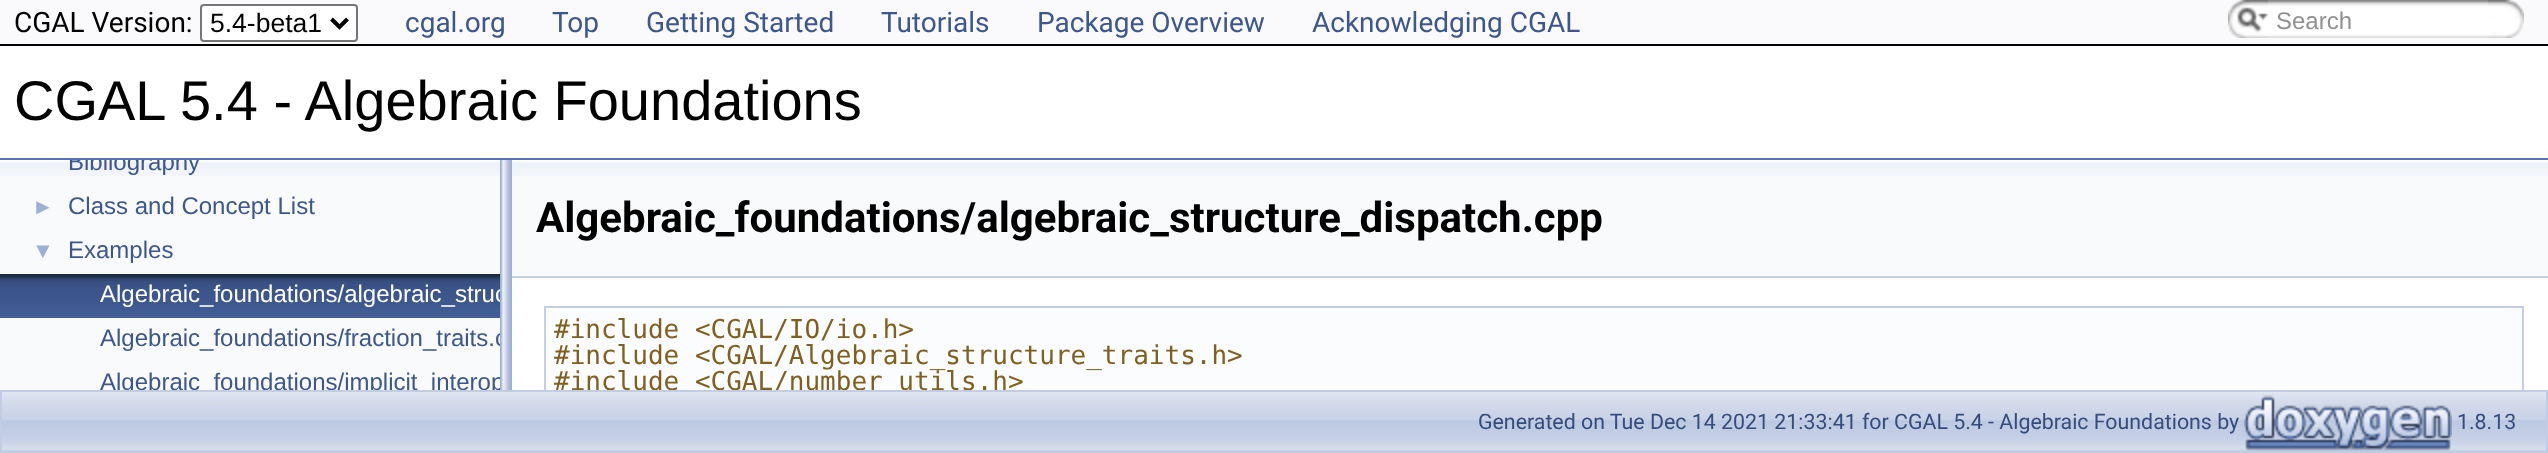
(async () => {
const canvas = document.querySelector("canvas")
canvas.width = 2548
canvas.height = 453
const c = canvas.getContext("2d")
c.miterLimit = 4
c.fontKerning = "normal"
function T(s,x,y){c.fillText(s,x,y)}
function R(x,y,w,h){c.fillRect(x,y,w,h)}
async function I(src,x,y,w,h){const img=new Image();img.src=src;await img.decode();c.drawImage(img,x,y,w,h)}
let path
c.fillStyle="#fff"
R(0,0,2548,453)
c.fillStyle="#faf9fb"
R(0,0,2548,44)
c.fillStyle="#000"
R(0,44,2548,2)
c.font="28px Roboto"
T("CGAL Version:",14,32)
c.fillStyle="#fff"
c.beginPath()
c.roundRect(201,5,156,36,3)
c.fill()
c.strokeStyle="#767676"
c.lineWidth=2
c.stroke()
path = new Path2D("M331.5 19l8 8l8-8")
c.strokeStyle="#000"
c.lineWidth=4
c.stroke(path)
c.font="26.5px Liberation Sans"
c.fillStyle="#000"
T("5.4-beta1",210,32)
c.font="28px Roboto"
c.fillStyle="#3d578c"
T("cgal.org",405,32)
T("Top",552,32)
T("Getting Started",646,32)
T("Tutorials",881,32)
T("Package Overview",1037,32)
T("Acknowledging CGAL",1312,32)
await I("1.png",2228,0,40,38)
await I("2.png",2237,7,31,26)
await I("3.png",2268,0,220,38)
c.font="24px Liberation Sans"
c.fillStyle="#909090"
T("Search",2276,29)
await I("4.png",2488,0,36,38)
c.fillStyle="#5373b4"
R(0,158,2548,2)
c.font="56px Liberation Sans"
c.fillStyle="#000"
T("CGAL 5.4 - Algebraic Foundations",14,120)
c.fillStyle="#f9fafc"
R(0,176,500,214)
await I("5.png",0,160,500,16)
c.save()
c.beginPath()
c.rect(0,160,500,230)
c.clip()
c.font="24px Liberation Sans"
c.fillStyle="#3d578c"
T("Bibliography",68,170)
c.restore()
c.font="22px Liberation Sans"
c.fillStyle="#9cafd4"
T("►",32,214)
c.font="24px Liberation Sans"
c.fillStyle="#3d578c"
T("Class and Concept List",68,214)
c.font="22px Liberation Sans"
c.fillStyle="#9cafd4"
T("▼",32,258)
c.font="24px Liberation Sans"
c.fillStyle="#3d578c"
T("Examples",68,258)
await I("6.png",0,274,500,44)
c.fillStyle="#fff"
T("Algebraic_foundations/algebraic_struc",100,302)
c.fillStyle="#3d578c"
T("Algebraic_foundations/fraction_traits.c",100,346)
c.save()
c.beginPath()
c.rect(0,160,500,230)
c.clip()
T("Algebraic_foundations/implicit_interop",100,390)
c.restore()
await I("7.png",500,160,12,230)
c.fillStyle="#f9fafc"
R(512,176,2036,100)
await I("8.png",512,160,2036,16)
c.fillStyle="#c4cfe5"
R(512,276,2036,2)
c.font="bold 42px Roboto"
c.fillStyle="#000"
T("Algebraic_foundations/algebraic_structure_dispatch.cpp",536,232)
c.fillStyle="#fbfcfd"
R(546,308,1976,82)
c.strokeStyle="#c4cfe5"
c.lineWidth=2
c.strokeRect(545,307,1978,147)
c.font="26px DejaVu Sans Mono"
c.fillStyle="#806020"
T("#include <CGAL/IO/io.h>",554,338)
T("#include <CGAL/Algebraic_structure_traits.h>",554,364)
T("#include <CGAL/number_utils.h>",554,390)
await I("9.png",2,392,2544,60)
c.strokeStyle="#c2cde4"
c.strokeRect(1,391,2546,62)
c.font="21.35px Roboto"
c.fillStyle="#364d7c"
T("Generated on Tue Dec 14 2021 21:33:41 for CGAL 5.4 - Algebraic Foundations by",1478,429)
await I("10.png",2244,395,208,56)
T("1.8.13",2457,429)
})()
